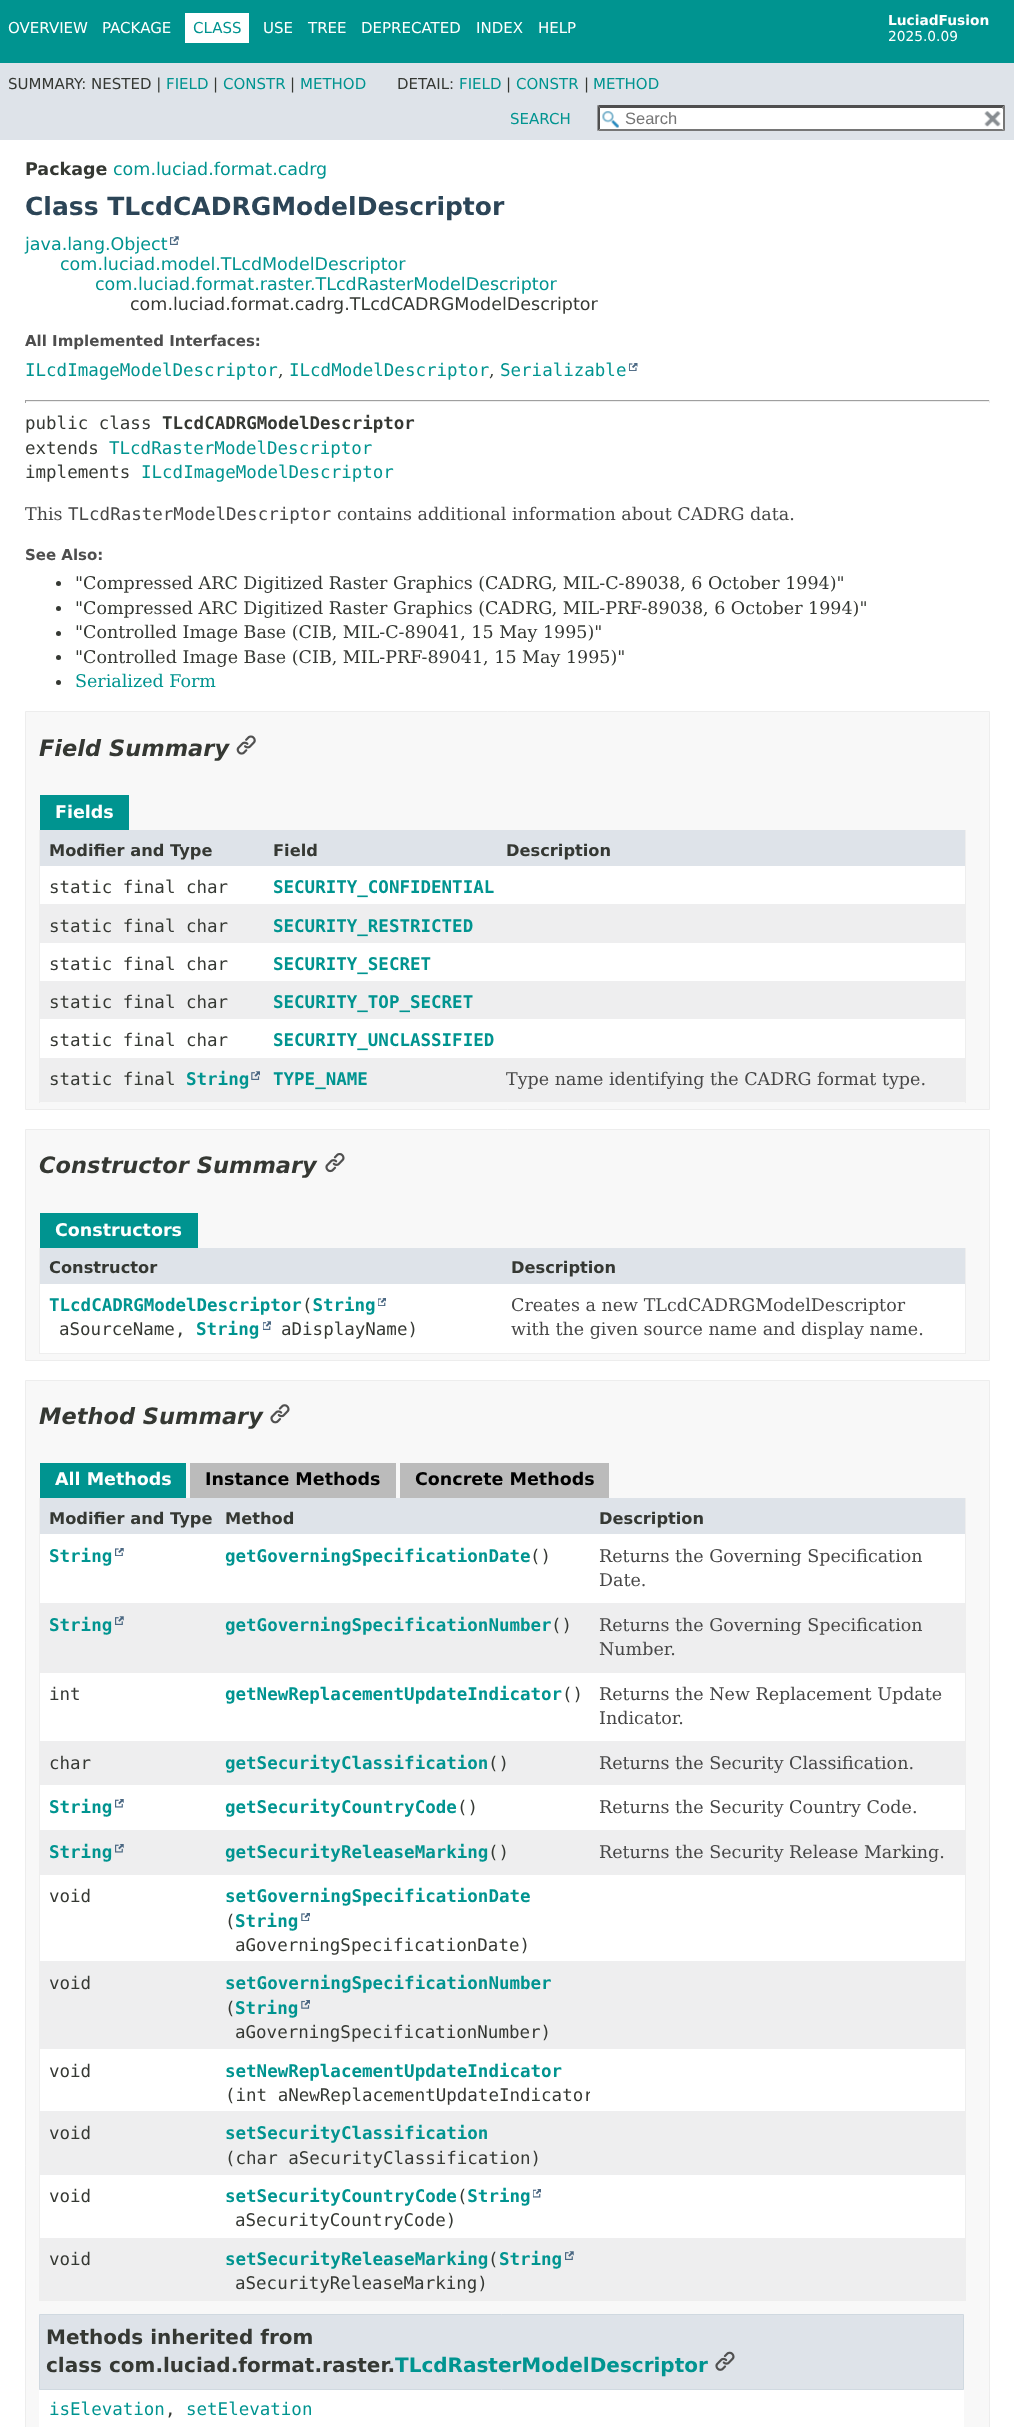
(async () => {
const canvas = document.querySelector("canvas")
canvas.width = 1014
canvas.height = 2427
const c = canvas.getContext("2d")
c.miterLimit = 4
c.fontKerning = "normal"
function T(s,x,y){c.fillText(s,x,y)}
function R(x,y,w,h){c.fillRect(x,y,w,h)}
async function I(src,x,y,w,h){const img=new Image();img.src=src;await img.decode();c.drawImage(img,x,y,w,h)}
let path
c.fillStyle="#fff"
R(0,0,1014,2427)
c.fillStyle="#009490"
R(0,0,1014,63)
c.font="15px DejaVu Sans"
c.fillStyle="#fff"
T("OVERVIEW",8,33)
T("PACKAGE",102,33)
R(185,13,64,30)
c.fillStyle="#009490"
T("CLASS",193,33)
c.fillStyle="#fff"
T("USE",263,33)
T("TREE",308,33)
T("DEPRECATED",361,33)
T("INDEX",476,33)
T("HELP",538,33)
c.font="bold 13.75px DejaVu Sans"
T("LuciadFusion",888,25)
c.font="13.75px DejaVu Sans"
T("2025.0.09",888,41)
c.fillStyle="#dee3e9"
R(0,63,1014,77)
c.font="15px DejaVu Sans"
c.fillStyle="#353833"
T("SUMMARY: NESTED |",8,89)
c.fillStyle="#009490"
T("FIELD",166,89)
c.fillStyle="#353833"
T("|",213,89)
c.fillStyle="#009490"
T("CONSTR",223,89)
c.fillStyle="#353833"
T("|",290,89)
c.fillStyle="#009490"
T("METHOD",300,89)
c.fillStyle="#353833"
T("DETAIL:",397,89)
c.fillStyle="#009490"
T("FIELD",459,89)
c.fillStyle="#353833"
T("|",506,89)
c.fillStyle="#009490"
T("CONSTR",516,89)
c.fillStyle="#353833"
T("|",584,89)
c.fillStyle="#009490"
T("METHOD",593,89)
T("SEARCH",510,124)
c.fillStyle="#fff"
R(598,105,407,26)
await I("1.png",602,111,17,17)
c.fillStyle="#4f4f4f"
path = new Path2D("M598 105h407l-3 3h-402z")
c.fill(path)
c.fillStyle="#767676"
path = new Path2D("M1005 105v26l-2.5-2v-21.5z")
c.fill(path)
path = new Path2D("M1005 131h-407l2-2h402z")
c.fill(path)
c.fillStyle="#4f4f4f"
path = new Path2D("M597.5 131v-26l2.5 2.5v21.5z")
c.fill(path)
c.font="16.5px Liberation Sans"
c.fillStyle="#757575"
T("Search",625,124)
c.fillStyle="#fff"
R(1002,109,1,20)
await I("2.png",984,111,17,16)
c.font="bold 17.5px DejaVu Sans"
c.fillStyle="#353833"
T("Package",25,175)
c.font="17.5px DejaVu Sans"
c.fillStyle="#009490"
T("com.luciad.format.cadrg",113,175)
c.font="bold 25px DejaVu Sans"
c.fillStyle="#2c4557"
T("Class TLcdCADRGModelDescriptor",25,215)
c.font="17.5px DejaVu Sans"
c.fillStyle="#009490"
T("java.lang.Object",25,250)
await I("3.png",170,236,9,9)
T("com.luciad.model.TLcdModelDescriptor",60,270)
T("com.luciad.format.raster.TLcdRasterModelDescriptor",95,290)
c.fillStyle="#353833"
T("com.luciad.format.cadrg.TLcdCADRGModelDescriptor",130,310)
c.font="bold 15px DejaVu Sans"
c.fillStyle="#4e4e4e"
T("All Implemented Interfaces:",25,346)
c.font="17.5px DejaVu Sans Mono"
c.fillStyle="#009490"
T("ILcdImageModelDescriptor",25,376)
c.font="17.5px DejaVu Serif"
c.fillStyle="#353833"
T(",",278,376)
c.font="17.5px DejaVu Sans Mono"
c.fillStyle="#009490"
T("ILcdModelDescriptor",289,376)
c.font="17.5px DejaVu Serif"
c.fillStyle="#353833"
T(",",489,376)
c.font="17.5px DejaVu Sans Mono"
c.fillStyle="#009490"
T("Serializable",500,376)
await I("4.png",629,363,9,8)
c.fillStyle="#9f9f9f"
R(25,400,965,1)
c.fillStyle="#eee"
R(989,400,1,3)
R(25,401,965,1)
c.fillStyle="#9f9f9f"
R(25,400,1,3)
c.fillStyle="#353833"
T("public class",25,429)
c.font="bold 17.5px DejaVu Sans Mono"
T("TLcdCADRGModelDescriptor",162,429)
c.font="17.5px DejaVu Sans Mono"
T("extends",25,454)
c.fillStyle="#009490"
T("TLcdRasterModelDescriptor",109,454)
c.fillStyle="#353833"
T("implements",25,478)
c.fillStyle="#009490"
T("ILcdImageModelDescriptor",141,478)
c.font="17.5px DejaVu Serif"
c.fillStyle="#474747"
T("This",25,520)
c.font="17.5px DejaVu Sans Mono"
T("TLcdRasterModelDescriptor",68,520)
c.font="17.5px DejaVu Serif"
T("contains additional information about CADRG data.",337,520)
c.font="bold 15px DejaVu Sans"
c.fillStyle="#4e4e4e"
T("See Also:",25,560)
c.fillStyle="#353833"
c.beginPath()
c.arc(58.5,583.5,2.5,0,7)
c.fill()
c.font="17.5px DejaVu Serif"
T("\"Compressed ARC Digitized Raster Graphics (CADRG, MIL-C-89038, 6 October 1994)\"",75,589)
c.beginPath()
c.arc(58.5,608.5,2.5,0,7)
c.fill()
T("\"Compressed ARC Digitized Raster Graphics (CADRG, MIL-PRF-89038, 6 October 1994)\"",75,614)
c.beginPath()
c.arc(58.5,633.5,2.5,0,7)
c.fill()
T("\"Controlled Image Base (CIB, MIL-C-89041, 15 May 1995)\"",75,638)
c.beginPath()
c.arc(58.5,657.5,2.5,0,7)
c.fill()
T("\"Controlled Image Base (CIB, MIL-PRF-89041, 15 May 1995)\"",75,663)
c.beginPath()
c.arc(58.5,682.5,2.5,0,7)
c.fill()
c.fillStyle="#009490"
T("Serialized Form",75,687)
c.fillStyle="#f8f8f8"
c.beginPath()
c.rect(25.5,711.5,964,398)
c.fill()
c.strokeStyle="#ededed"
c.stroke()
c.font="italic bold 22.5px DejaVu Sans"
c.fillStyle="#353833"
T("Field Summary",39,756)
await I("5.png",236,735,20,20)
c.fillStyle="#009490"
R(40,795,89,35)
c.font="bold 17.5px DejaVu Sans"
c.fillStyle="#fff"
T("Fields",55,818)
c.fillStyle="#eee"
R(965,830,1,273)
R(39,1101,927,1)
R(39,830,1,273)
c.fillStyle="#dee3e9"
R(40,830,458,36)
c.font="bold 16.25px DejaVu Sans"
c.fillStyle="#353833"
T("Modifier and Type",49,856)
T("Field",273,856)
c.fillStyle="#dee3e9"
R(498,830,467,36)
c.fillStyle="#353833"
T("Description",506,856)
c.fillStyle="#fff"
R(40,866,458,38)
c.font="17.5px DejaVu Sans Mono"
c.fillStyle="#353833"
T("static final char",49,893)
c.font="bold 17.5px DejaVu Sans Mono"
c.fillStyle="#009490"
T("SECURITY_CONFIDENTIAL",273,893)
c.fillStyle="#fff"
R(498,866,467,38)
c.fillStyle="#eeeeef"
R(40,904,458,39)
c.font="17.5px DejaVu Sans Mono"
c.fillStyle="#353833"
T("static final char",49,932)
c.font="bold 17.5px DejaVu Sans Mono"
c.fillStyle="#009490"
T("SECURITY_RESTRICTED",273,932)
c.fillStyle="#eeeeef"
R(498,904,467,39)
c.fillStyle="#fff"
R(40,943,458,38)
c.font="17.5px DejaVu Sans Mono"
c.fillStyle="#353833"
T("static final char",49,970)
c.font="bold 17.5px DejaVu Sans Mono"
c.fillStyle="#009490"
T("SECURITY_SECRET",273,970)
c.fillStyle="#fff"
R(498,943,467,38)
c.fillStyle="#eeeeef"
R(40,981,458,38)
c.font="17.5px DejaVu Sans Mono"
c.fillStyle="#353833"
T("static final char",49,1008)
c.font="bold 17.5px DejaVu Sans Mono"
c.fillStyle="#009490"
T("SECURITY_TOP_SECRET",273,1008)
c.fillStyle="#eeeeef"
R(498,981,467,38)
c.fillStyle="#fff"
R(40,1019,458,39)
c.font="17.5px DejaVu Sans Mono"
c.fillStyle="#353833"
T("static final char",49,1046)
c.font="bold 17.5px DejaVu Sans Mono"
c.fillStyle="#009490"
T("SECURITY_UNCLASSIFIED",273,1046)
c.fillStyle="#fff"
R(498,1019,467,39)
c.fillStyle="#eeeeef"
R(40,1058,458,43)
c.font="17.5px DejaVu Sans Mono"
c.fillStyle="#353833"
T("static final",49,1085)
c.font="bold 17.5px DejaVu Sans Mono"
c.fillStyle="#009490"
T("String",186,1085)
await I("6.png",251,1071,9,9)
T("TYPE_NAME",273,1085)
c.fillStyle="#eeeeef"
R(498,1058,467,43)
c.font="17.5px DejaVu Serif"
c.fillStyle="#474747"
T("Type name identifying the CADRG format type.",506,1085)
c.fillStyle="#f8f8f8"
c.beginPath()
c.rect(25.5,1129.5,964,231)
c.fill()
c.stroke()
c.font="italic bold 22.5px DejaVu Sans"
c.fillStyle="#353833"
T("Constructor Summary",39,1173)
await I("7.png",325,1153,20,20)
c.fillStyle="#009490"
R(40,1213,158,35)
c.font="bold 17.5px DejaVu Sans"
c.fillStyle="#fff"
T("Constructors",55,1236)
c.fillStyle="#eee"
R(965,1248,1,106)
R(39,1353,927,1)
R(39,1248,1,106)
c.fillStyle="#dee3e9"
R(40,1248,925,36)
c.font="bold 16.25px DejaVu Sans"
c.fillStyle="#353833"
T("Constructor",49,1273)
T("Description",511,1273)
c.fillStyle="#fff"
R(40,1284,925,69)
c.font="bold 17.5px DejaVu Sans Mono"
c.fillStyle="#009490"
T("TLcdCADRGModelDescriptor String",49,1311)
c.font="17.5px DejaVu Sans Mono"
c.fillStyle="#353833"
T("(",302,1311)
await I("8.png",378,1298,8,8)
T("aSourceName,",59,1335)
c.font="bold 17.5px DejaVu Sans Mono"
c.fillStyle="#009490"
T("String",196,1335)
await I("9.png",263,1321,8,9)
c.font="17.5px DejaVu Sans Mono"
c.fillStyle="#353833"
T("aDisplayName)",281,1335)
c.font="17.5px DejaVu Serif"
c.fillStyle="#474747"
T("Creates a new TLcdCADRGModelDescriptor",511,1311)
T("with the given source name and display name.",511,1335)
c.fillStyle="#f8f8f8"
c.beginPath()
c.rect(25.5,1380.5,964,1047)
c.fill()
c.stroke()
c.font="italic bold 22.5px DejaVu Sans"
c.fillStyle="#353833"
T("Method Summary",39,1424)
await I("10.png",270,1404,20,20)
c.fillStyle="#009490"
R(40,1463,146,35)
c.font="bold 17.5px DejaVu Sans"
c.fillStyle="#fff"
T("All Methods",55,1485)
c.fillStyle="#bbb"
R(190,1463,206,35)
c.fillStyle="#000"
T("Instance Methods",205,1485)
c.fillStyle="#bbb"
R(400,1463,209,35)
c.fillStyle="#000"
T("Concrete Methods",415,1485)
c.fillStyle="#eee"
R(965,1498,1,803)
R(39,2300,927,1)
R(39,1498,1,803)
c.fillStyle="#dee3e9"
R(40,1498,550,36)
c.font="bold 16.25px DejaVu Sans"
c.fillStyle="#353833"
T("Modifier and Type",49,1524)
T("Method",225,1524)
c.fillStyle="#dee3e9"
R(590,1498,375,36)
c.fillStyle="#353833"
T("Description",599,1524)
c.fillStyle="#fff"
R(40,1534,550,69)
c.font="bold 17.5px DejaVu Sans Mono"
c.fillStyle="#009490"
T("String",49,1562)
await I("11.png",115,1548,9,8)
T("getGoverningSpecificationDate",225,1562)
c.font="17.5px DejaVu Sans Mono"
c.fillStyle="#353833"
T("()",530,1562)
c.fillStyle="#fff"
R(590,1534,375,69)
c.font="17.5px DejaVu Serif"
c.fillStyle="#474747"
T("Returns the Governing Specification",599,1562)
T("Date.",599,1586)
c.fillStyle="#eeeeef"
R(40,1603,550,70)
c.font="bold 17.5px DejaVu Sans Mono"
c.fillStyle="#009490"
T("String",49,1631)
await I("12.png",115,1616,9,9)
T("getGoverningSpecificationNumber",225,1631)
c.font="17.5px DejaVu Sans Mono"
c.fillStyle="#353833"
T("()",551,1631)
c.fillStyle="#eeeeef"
R(590,1603,375,70)
c.font="17.5px DejaVu Serif"
c.fillStyle="#474747"
T("Returns the Governing Specification",599,1631)
T("Number.",599,1655)
c.fillStyle="#fff"
R(40,1673,550,68)
c.font="17.5px DejaVu Sans Mono"
c.fillStyle="#353833"
T("int",49,1700)
c.font="bold 17.5px DejaVu Sans Mono"
c.fillStyle="#009490"
T("getNewReplacementUpdateIndicator",225,1700)
c.font="17.5px DejaVu Sans Mono"
c.fillStyle="#353833"
T("()",562,1700)
c.fillStyle="#fff"
R(590,1673,375,68)
c.font="17.5px DejaVu Serif"
c.fillStyle="#474747"
T("Returns the New Replacement Update",599,1700)
T("Indicator.",599,1724)
c.fillStyle="#eeeeef"
R(40,1741,550,44)
c.font="17.5px DejaVu Sans Mono"
c.fillStyle="#353833"
T("char",49,1769)
c.font="bold 17.5px DejaVu Sans Mono"
c.fillStyle="#009490"
T("getSecurityClassification",225,1769)
c.font="17.5px DejaVu Sans Mono"
c.fillStyle="#353833"
T("()",488,1769)
c.fillStyle="#eeeeef"
R(590,1741,375,44)
c.font="17.5px DejaVu Serif"
c.fillStyle="#474747"
T("Returns the Security Classification.",599,1769)
c.fillStyle="#fff"
R(40,1785,550,45)
c.font="bold 17.5px DejaVu Sans Mono"
c.fillStyle="#009490"
T("String",49,1813)
await I("13.png",115,1799,9,9)
T("getSecurityCountryCode",225,1813)
c.font="17.5px DejaVu Sans Mono"
c.fillStyle="#353833"
T("()",457,1813)
c.fillStyle="#fff"
R(590,1785,375,45)
c.font="17.5px DejaVu Serif"
c.fillStyle="#474747"
T("Returns the Security Country Code.",599,1813)
c.fillStyle="#eeeeef"
R(40,1830,550,45)
c.font="bold 17.5px DejaVu Sans Mono"
c.fillStyle="#009490"
T("String",49,1858)
await I("14.png",115,1844,9,9)
T("getSecurityReleaseMarking",225,1858)
c.font="17.5px DejaVu Sans Mono"
c.fillStyle="#353833"
T("()",488,1858)
c.fillStyle="#eeeeef"
R(590,1830,375,45)
c.font="17.5px DejaVu Serif"
c.fillStyle="#474747"
T("Returns the Security Release Marking.",599,1858)
c.fillStyle="#fff"
R(40,1875,550,86)
c.font="17.5px DejaVu Sans Mono"
c.fillStyle="#353833"
T("void",49,1902)
c.font="bold 17.5px DejaVu Sans Mono"
c.fillStyle="#009490"
T("setGoverningSpecificationDate",225,1902)
c.font="17.5px DejaVu Sans Mono"
c.fillStyle="#353833"
T("(",225,1927)
c.font="bold 17.5px DejaVu Sans Mono"
c.fillStyle="#009490"
T("String",235,1927)
await I("15.png",301,1913,9,8)
c.font="17.5px DejaVu Sans Mono"
c.fillStyle="#353833"
T("aGoverningSpecificationDate)",235,1951)
c.fillStyle="#fff"
R(590,1875,375,86)
c.fillStyle="#eeeeef"
R(40,1961,550,88)
c.fillStyle="#353833"
T("void",49,1989)
c.font="bold 17.5px DejaVu Sans Mono"
c.fillStyle="#009490"
T("setGoverningSpecificationNumber",225,1989)
c.font="17.5px DejaVu Sans Mono"
c.fillStyle="#353833"
T("(",225,2014)
c.font="bold 17.5px DejaVu Sans Mono"
c.fillStyle="#009490"
T("String",235,2014)
await I("16.png",301,2000,9,9)
c.font="17.5px DejaVu Sans Mono"
c.fillStyle="#353833"
T("aGoverningSpecificationNumber)",235,2038)
c.fillStyle="#eeeeef"
R(590,1961,375,88)
c.fillStyle="#fff"
R(40,2049,550,62)
c.fillStyle="#353833"
T("void",49,2077)
c.font="bold 17.5px DejaVu Sans Mono"
c.fillStyle="#009490"
T("setNewReplacementUpdateIndicator",225,2077)
c.save()
c.beginPath()
c.rect(216,2049,374,62)
c.clip()
c.font="17.5px DejaVu Sans Mono"
c.fillStyle="#353833"
T("(int aNewReplacementUpdateIndicator",225,2101)
c.restore()
c.fillStyle="#fff"
R(590,2049,375,62)
c.fillStyle="#eeeeef"
R(40,2111,550,64)
c.font="17.5px DejaVu Sans Mono"
c.fillStyle="#353833"
T("void",49,2139)
c.font="bold 17.5px DejaVu Sans Mono"
c.fillStyle="#009490"
T("setSecurityClassification",225,2139)
c.font="17.5px DejaVu Sans Mono"
c.fillStyle="#353833"
T("(char aSecurityClassification)",225,2164)
c.fillStyle="#eeeeef"
R(590,2111,375,64)
c.fillStyle="#fff"
R(40,2175,550,63)
c.fillStyle="#353833"
T("void",49,2202)
c.font="bold 17.5px DejaVu Sans Mono"
c.fillStyle="#009490"
T("setSecurityCountryCode String",225,2202)
c.font="17.5px DejaVu Sans Mono"
c.fillStyle="#353833"
T("(",457,2202)
await I("17.png",533,2189,8,9)
T("aSecurityCountryCode)",235,2226)
c.fillStyle="#fff"
R(590,2175,375,63)
c.fillStyle="#eeeeef"
R(40,2238,550,62)
c.fillStyle="#353833"
T("void",49,2265)
c.font="bold 17.5px DejaVu Sans Mono"
c.fillStyle="#009490"
T("setSecurityReleaseMarking String",225,2265)
c.font="17.5px DejaVu Sans Mono"
c.fillStyle="#353833"
T("(",488,2265)
await I("12.png",565,2251,9,9)
T("aSecurityReleaseMarking)",235,2289)
c.fillStyle="#eeeeef"
R(590,2238,375,62)
c.fillStyle="#fff"
R(39,2390,925,37)
c.fillStyle="#dee3e9"
c.beginPath()
c.rect(39.5,2314.5,924,75)
c.fill()
c.strokeStyle="#d0d9e0"
c.stroke()
c.font="bold 20px DejaVu Sans"
c.fillStyle="#353833"
T("Methods inherited from",46,2344)
T("class com.luciad.format.raster.",46,2372)
c.fillStyle="#009490"
T("TLcdRasterModelDescriptor",395,2372)
await I("18.png",715,2351,20,20)
c.font="17.5px DejaVu Sans Mono"
T("isElevation",49,2415)
c.fillStyle="#353833"
T(",",165,2415)
c.fillStyle="#009490"
T("setElevation",186,2415)
})()
